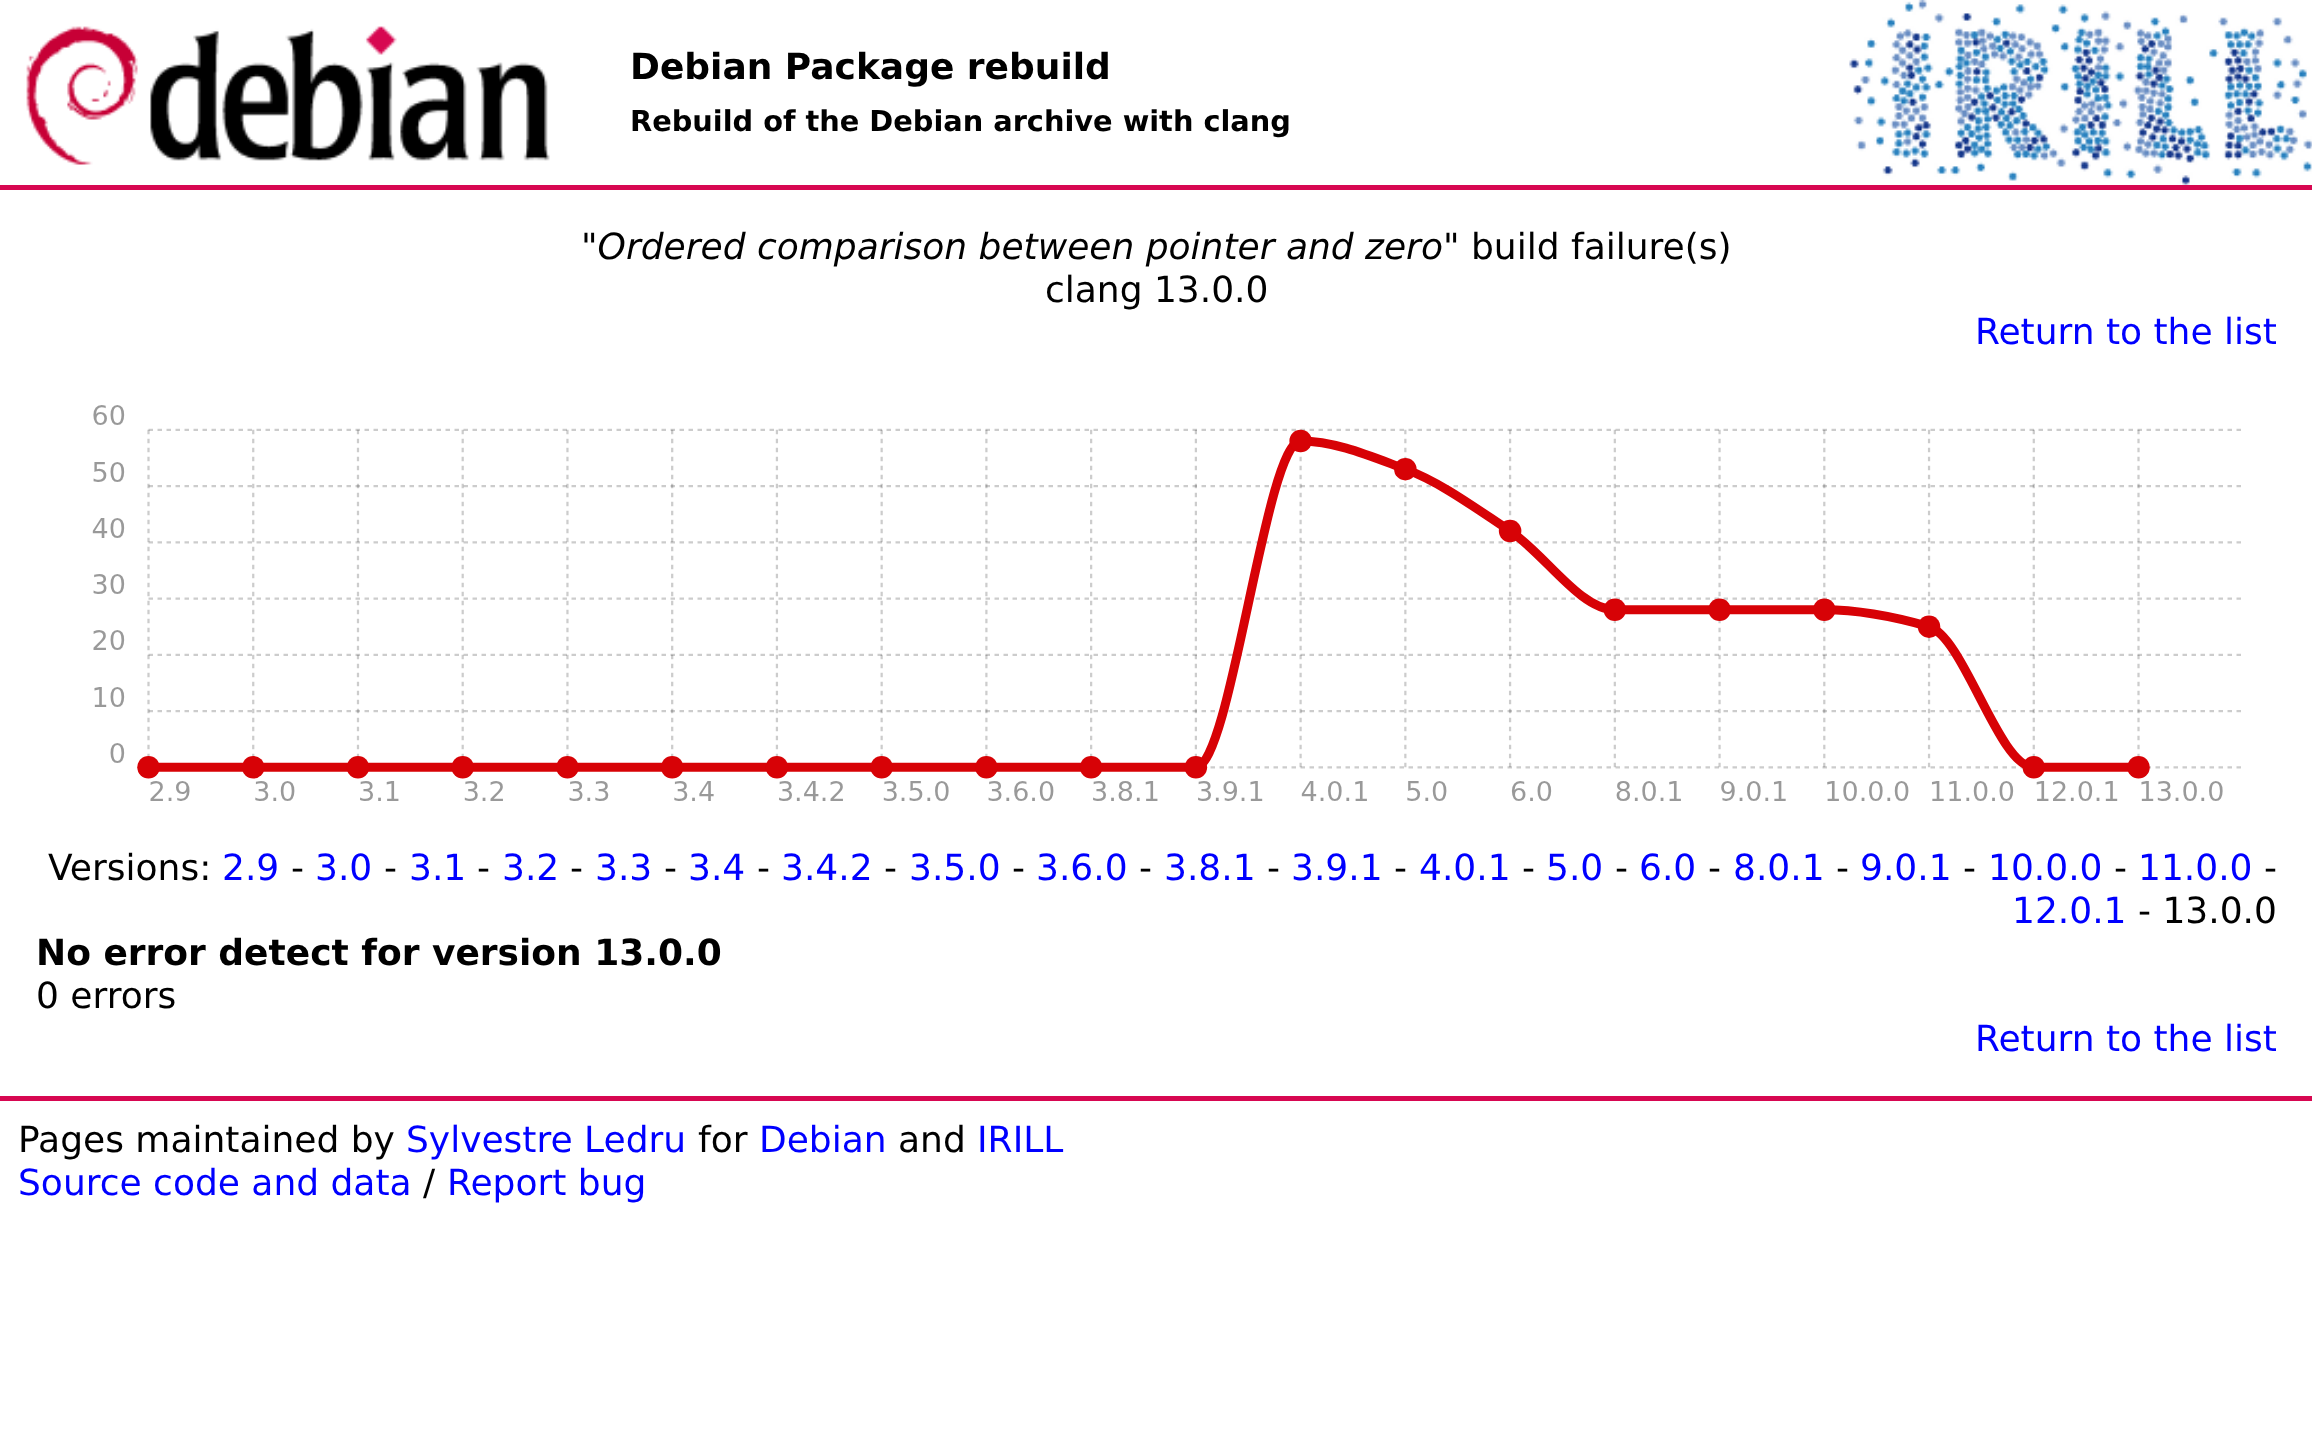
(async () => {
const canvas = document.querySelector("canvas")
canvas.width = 2312
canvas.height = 1433
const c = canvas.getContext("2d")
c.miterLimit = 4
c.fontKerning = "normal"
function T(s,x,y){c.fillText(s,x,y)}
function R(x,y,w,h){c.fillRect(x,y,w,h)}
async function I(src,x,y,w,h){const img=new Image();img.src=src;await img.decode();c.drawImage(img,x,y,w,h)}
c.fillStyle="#fff"
R(0,0,2312,1433)
await I("1.png",26,26,524,139)
c.font="bold 36px DejaVu Sans"
c.fillStyle="#000"
T("Debian Package rebuild",630,79)
await I("2.png",1849,0,463,185)
c.font="bold 28.8px DejaVu Sans"
T("Rebuild of the Debian archive with clang",630,131)
c.fillStyle="#d70751"
R(0,185,2312,5)
c.font="italic 36px DejaVu Sans"
c.fillStyle="#000"
T("\"Ordered comparison between pointer and zero\"",581,259)
c.font="36px DejaVu Sans"
T("build failure(s)",1471,259)
T("clang 13.0.0",1045,302)
c.fillStyle="#00f"
T("Return to the list",1975,344)
await I("3.png",92,405,2149,396)
c.fillStyle="#000"
T("Versions:",48,880)
c.fillStyle="#00f"
T("2.9",222,880)
c.fillStyle="#000"
T("-",291,880)
c.fillStyle="#00f"
T("3.0",315,880)
c.fillStyle="#000"
T("-",384,880)
c.fillStyle="#00f"
T("3.1",409,880)
c.fillStyle="#000"
T("-",477,880)
c.fillStyle="#00f"
T("3.2",502,880)
c.fillStyle="#000"
T("-",570,880)
c.fillStyle="#00f"
T("3.3",595,880)
c.fillStyle="#000"
T("-",664,880)
c.fillStyle="#00f"
T("3.4",688,880)
c.fillStyle="#000"
T("-",757,880)
c.fillStyle="#00f"
T("3.4.2",781,880)
c.fillStyle="#000"
T("-",884,880)
c.fillStyle="#00f"
T("3.5.0",909,880)
c.fillStyle="#000"
T("-",1012,880)
c.fillStyle="#00f"
T("3.6.0",1036,880)
c.fillStyle="#000"
T("-",1139,880)
c.fillStyle="#00f"
T("3.8.1",1164,880)
c.fillStyle="#000"
T("-",1267,880)
c.fillStyle="#00f"
T("3.9.1",1291,880)
c.fillStyle="#000"
T("-",1394,880)
c.fillStyle="#00f"
T("4.0.1",1419,880)
c.fillStyle="#000"
T("-",1522,880)
c.fillStyle="#00f"
T("5.0",1546,880)
c.fillStyle="#000"
T("-",1615,880)
c.fillStyle="#00f"
T("6.0",1639,880)
c.fillStyle="#000"
T("-",1708,880)
c.fillStyle="#00f"
T("8.0.1",1733,880)
c.fillStyle="#000"
T("-",1836,880)
c.fillStyle="#00f"
T("9.0.1",1860,880)
c.fillStyle="#000"
T("-",1963,880)
c.fillStyle="#00f"
T("10.0.0",1988,880)
c.fillStyle="#000"
T("-",2114,880)
c.fillStyle="#00f"
T("11.0.0",2138,880)
c.fillStyle="#000"
T("-",2264,880)
c.fillStyle="#00f"
T("12.0.1",2012,923)
c.fillStyle="#000"
T("- 13.0.0",2138,923)
c.font="bold 36px DejaVu Sans"
T("No error detect for version 13.0.0",36,965)
c.font="36px DejaVu Sans"
T("0 errors",36,1008)
c.fillStyle="#00f"
T("Return to the list",1975,1051)
c.fillStyle="#d70751"
R(0,1096,2312,5)
c.fillStyle="#000"
T("Pages maintained by",18,1152)
c.fillStyle="#00f"
T("Sylvestre Ledru",406,1152)
c.fillStyle="#000"
T("for",698,1152)
c.fillStyle="#00f"
T("Debian",759,1152)
c.fillStyle="#000"
T("and",898,1152)
c.fillStyle="#00f"
T("IRILL",977,1152)
T("Source code and data",18,1195)
c.fillStyle="#000"
T("/",423,1195)
c.fillStyle="#00f"
T("Report bug",447,1195)
})()
